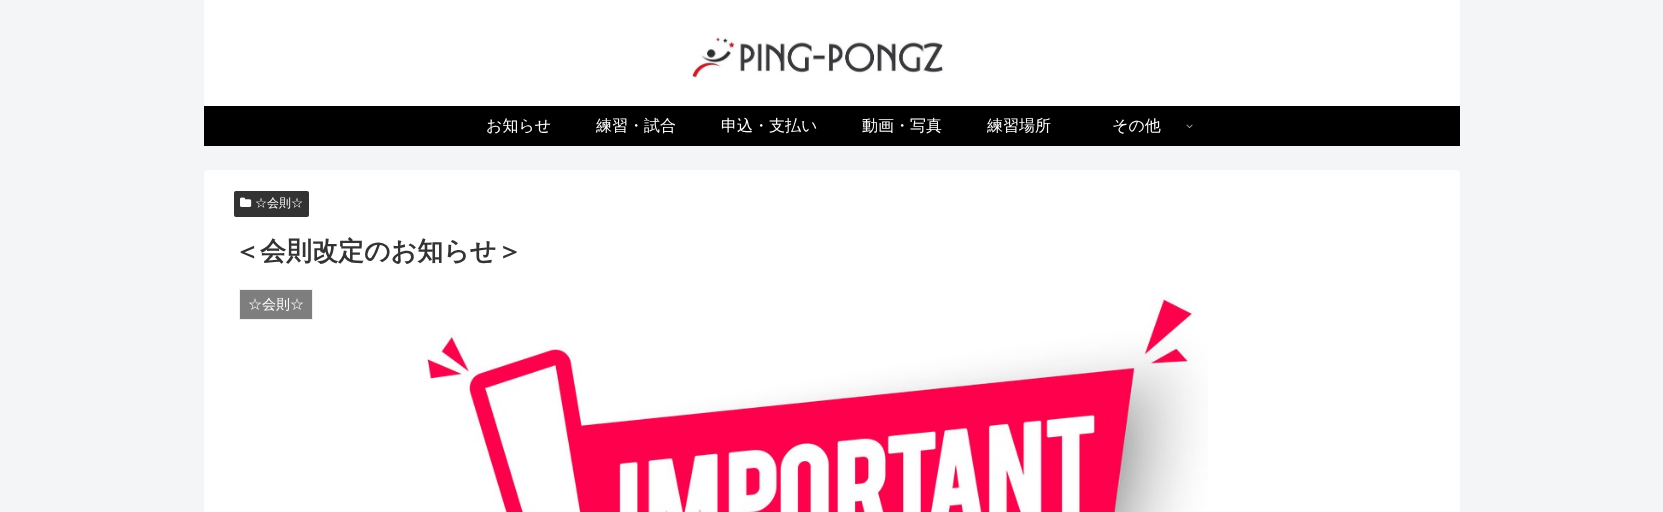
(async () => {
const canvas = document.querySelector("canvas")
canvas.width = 1663
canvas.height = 512
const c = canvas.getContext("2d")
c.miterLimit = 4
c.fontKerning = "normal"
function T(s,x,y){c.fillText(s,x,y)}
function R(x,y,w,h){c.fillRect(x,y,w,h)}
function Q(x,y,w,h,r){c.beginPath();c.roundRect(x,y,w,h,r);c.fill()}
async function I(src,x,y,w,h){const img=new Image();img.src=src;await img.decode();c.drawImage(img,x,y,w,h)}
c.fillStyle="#f4f5f7"
R(0,0,1663,512)
c.fillStyle="#fff"
R(204,0,1256,106)
await I("1.png",691,36,253,42)
c.fillStyle="#000"
R(204,106,1256,40)
c.font="500 16px WenQuanYi Zen Hei"
c.fillStyle="#fff"
T("お知らせ",486,131)
T("練習・試合",596,131)
T("申込・支払い",721,131)
T("動画・写真",862,131)
T("練習場所",987,131)
T("その他",1112,131)
await I("2.png",1186,124,7,5)
Q(204,170,1256,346,4)
c.fillStyle="#333"
Q(234,191,75,26,2)
await I("3.png",240,197,12,10)
c.font="500 12px WenQuanYi Zen Hei"
c.fillStyle="#fff"
T("☆会則☆",255,207)
c.font="bold 26px WenQuanYi Zen Hei"
c.fillStyle="#333"
T("＜会則改定のお知らせ＞",234,260)
c.fillStyle="#7e7e7e"
c.beginPath()
c.rect(239.5,289.5,73,30)
c.fill()
c.strokeStyle="#f0f0f0"
c.stroke()
c.font="500 14px WenQuanYi Zen Hei"
c.fillStyle="#fff"
T("☆会則☆",248,309)
await I("4.png",423,297,785,215)
})()
